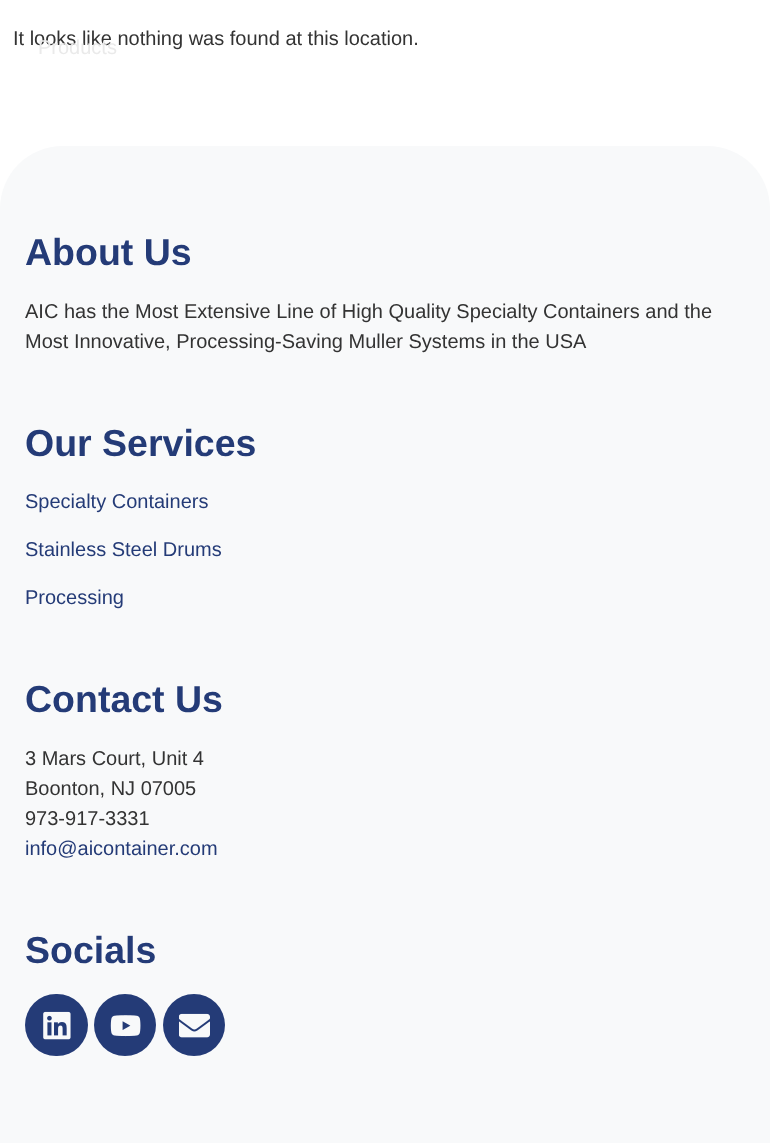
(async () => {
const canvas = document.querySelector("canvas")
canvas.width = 770
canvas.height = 1143
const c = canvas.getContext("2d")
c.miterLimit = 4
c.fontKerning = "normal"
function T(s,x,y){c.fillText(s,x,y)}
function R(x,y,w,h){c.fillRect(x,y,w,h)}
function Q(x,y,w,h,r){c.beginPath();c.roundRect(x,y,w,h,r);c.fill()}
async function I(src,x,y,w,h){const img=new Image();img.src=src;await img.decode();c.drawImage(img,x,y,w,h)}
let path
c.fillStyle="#fff"
R(0,0,770,1143)
c.font="20px Liberation Sans"
c.fillStyle="#333"
T("It looks like nothing was found at this location.",13,45)
c.fillStyle="#eaeaea"
T("Products",38,54)
c.fillStyle="#f8f9fa"
path = new Path2D("M63 146h644c35 0 63 28 63 63v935h-770v-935c0-35 28-63 63-63z")
c.fill(path)
c.font="bold 37.5px Liberation Sans"
c.fillStyle="#243b77"
T("About Us",25,265)
c.font="20px Liberation Sans"
c.fillStyle="#333"
T("AIC has the Most Extensive Line of High Quality Specialty Containers and the",25,318)
T("Most Innovative, Processing-Saving Muller Systems in the USA",25,348)
c.font="bold 37.5px Liberation Sans"
c.fillStyle="#243b77"
T("Our Services",25,456)
c.font="20px Liberation Sans"
T("Specialty Containers",25,508)
T("Stainless Steel Drums",25,556)
T("Processing",25,604)
c.font="bold 37.5px Liberation Sans"
T("Contact Us",25,712)
c.font="20px Liberation Sans"
c.fillStyle="#333"
T("3 Mars Court, Unit 4",25,765)
T("Boonton, NJ 07005",25,795)
T("973-917-3331",25,825)
c.fillStyle="#243b77"
T("info@aicontainer.com",25,855)
c.font="bold 37.5px Liberation Sans"
T("Socials",25,963)
Q(25,994,63,62,31)
await I("1.png",43,1011,28,29)
c.beginPath()
c.arc(125,1025,31,0,7)
c.fill()
await I("2.png",110,1015,31,22)
c.beginPath()
c.arc(194,1025,31,0,7)
c.fill()
await I("3.png",179,1013,31,25)
})()
